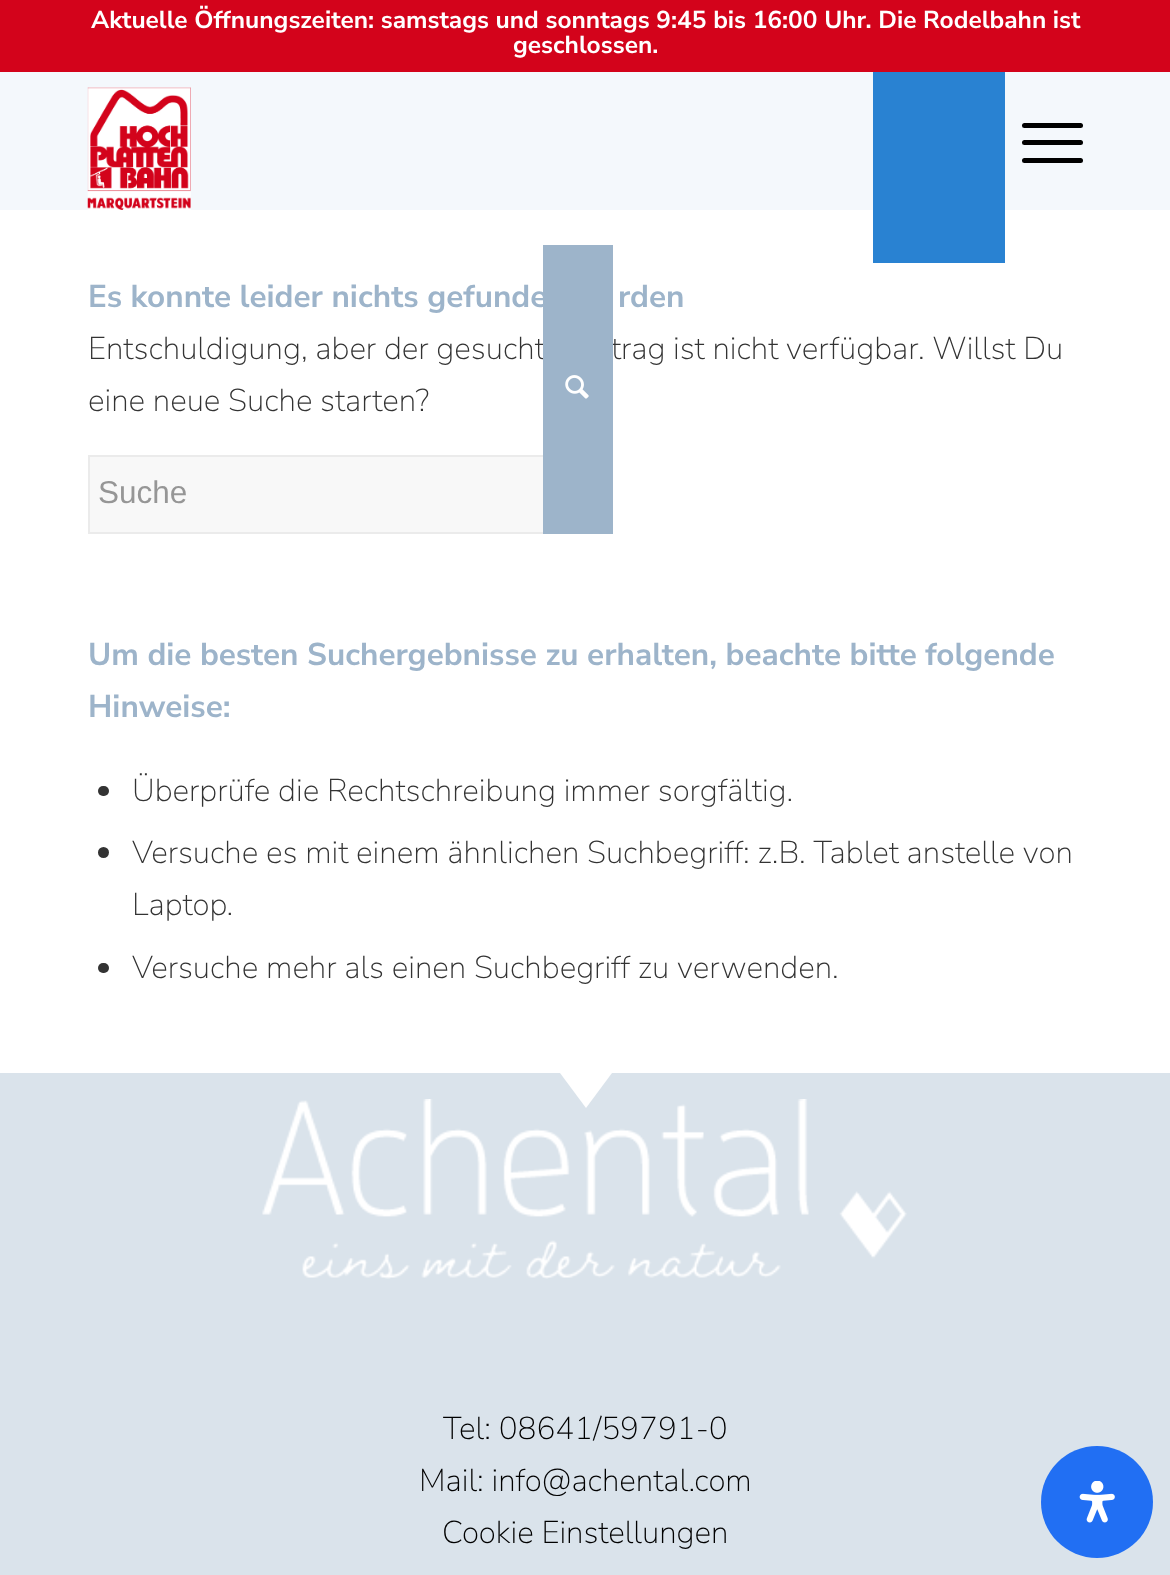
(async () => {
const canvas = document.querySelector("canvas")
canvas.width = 1170
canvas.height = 1575
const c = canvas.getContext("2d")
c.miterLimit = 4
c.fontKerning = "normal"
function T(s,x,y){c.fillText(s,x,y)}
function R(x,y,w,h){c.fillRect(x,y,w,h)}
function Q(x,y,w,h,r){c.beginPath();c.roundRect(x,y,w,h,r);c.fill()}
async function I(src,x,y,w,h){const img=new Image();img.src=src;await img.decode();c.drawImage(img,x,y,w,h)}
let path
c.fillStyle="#f4f8fc"
R(0,0,1170,1575)
c.fillStyle="#d3031b"
R(0,0,1170,72)
c.font="bold 24.5px Nunito Sans"
c.fillStyle="#fff"
T("Aktuelle Öffnungszeiten: samstags und sonntags 9:45 bis 16:00 Uhr. Die Rodelbahn ist",91,28)
T("geschlossen.",513,53)
await I("1.png",87,87,104,123)
R(0,210,1170,863)
c.fillStyle="#2982d2"
R(873,72,132,191)
c.fillStyle="#000"
Q(1022,140,61,5,2.5)
Q(1022,123,61,5,2.5)
Q(1022,158,61,5,2.5)
c.font="bold 31.5px Nunito Sans"
c.fillStyle="#9db4ca"
T("Es konnte leider nichts gefunde",88,307)
T("rden",618,307)
c.font="200 31.5px Nunito Sans"
c.fillStyle="#333"
T("Entschuldigung, aber der gesucht",88,359)
T("trag ist nicht verfügbar. Willst Du",611,359)
T("eine neue Suche starten?",88,411)
c.fillStyle="#f8f8f8"
R(90,457,453,75)
c.strokeStyle="#ebebeb"
c.lineWidth=2
c.strokeRect(89,456,523,77)
c.font="31.5px Liberation Sans"
c.fillStyle="#969696"
T("Suche",98,503)
c.fillStyle="#9db4ca"
R(543,245,70,289)
await I("2.png",565,375,24,24)
c.font="bold 31.5px Nunito Sans"
T("Um die besten Suchergebnisse zu erhalten, beachte bitte folgende",88,665)
T("Hinweise:",88,717)
c.fillStyle="#333"
Q(98,786,11,10,5)
c.font="200 31.5px Nunito Sans"
T("Überprüfe die Rechtschreibung immer sorgfältig.",132,801)
c.beginPath()
c.arc(103.5,852.5,5.5,0,7)
c.fill()
T("Versuche es mit einem ähnlichen Suchbegriff: z.B. Tablet anstelle von",132,863)
T("Laptop.",132,915)
Q(98,963,11,10,5)
T("Versuche mehr als einen Suchbegriff zu verwenden.",132,978)
c.fillStyle="#dae3eb"
R(0,1073,1170,502)
await I("3.png",262,1099,645,180)
c.fillStyle="#fff"
path = new Path2D("M560 1073h52l-26 35z")
c.fill(path)
c.fillStyle="#000"
T("Tel: 08641/59791-0",443,1439)
T("Mail: info@achental.com",419,1491)
T("Cookie Einstellungen",442,1543)
c.fillStyle="#216ff3"
c.beginPath()
c.arc(1097,1502,56,0,7)
c.fill()
await I("4.png",1079,1481,36,42)
})()
